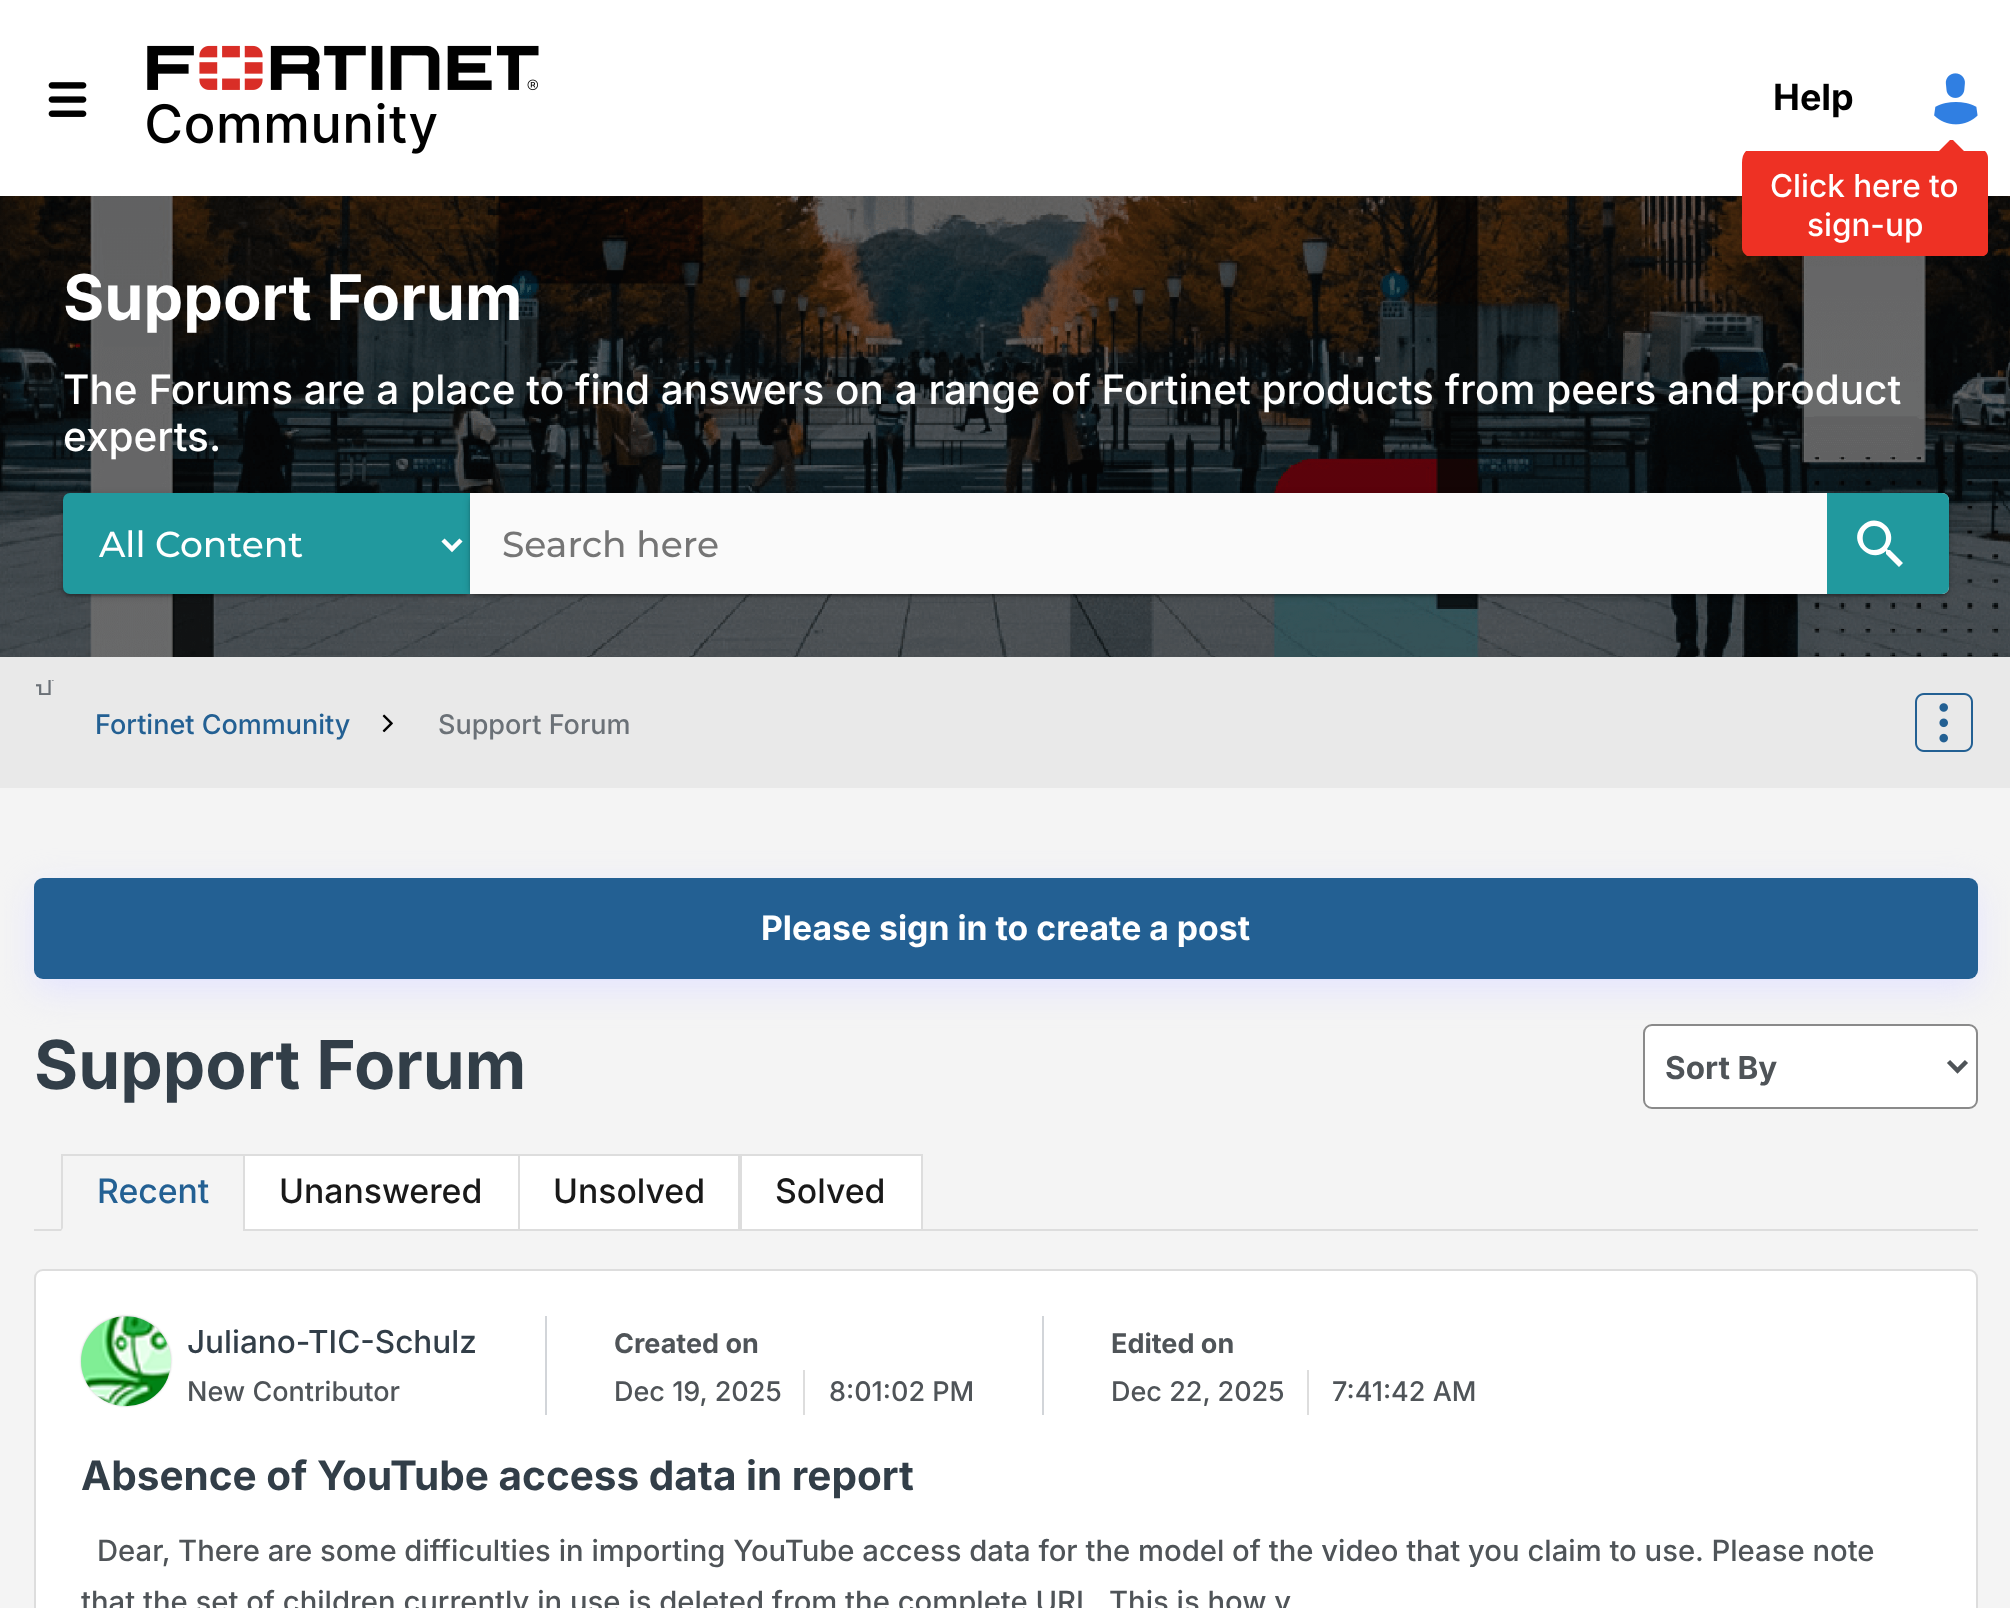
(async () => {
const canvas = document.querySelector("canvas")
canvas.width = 2010
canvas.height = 1608
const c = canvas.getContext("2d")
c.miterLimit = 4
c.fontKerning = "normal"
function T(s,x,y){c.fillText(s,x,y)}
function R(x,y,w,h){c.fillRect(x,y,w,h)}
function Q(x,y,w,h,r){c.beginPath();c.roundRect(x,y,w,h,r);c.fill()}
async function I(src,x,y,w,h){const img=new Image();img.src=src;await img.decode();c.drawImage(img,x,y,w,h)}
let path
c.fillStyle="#f4f4f4"
R(0,0,2010,1608)
c.fillStyle="#fff"
R(0,0,2010,196)
await I("1.png",48,82,39,35)
await I("2.png",147,45,392,109)
c.font="bold 36px Inter"
c.fillStyle="#000"
T("Help",1773,110)
await I("3.png",1934,73,44,52)
await I("4.png",0,196,2010,461)
c.fillStyle="#ee3124"
path = new Path2D("M1939 151h-193c-3 3-4 7-4 12v85c0 3 2 6 5 8h237c2-1 4-3 4-5v-93c0-3-1-5-3-7h-21l-11-11h-3z")
c.fill(path)
c.font="500 31.5px Inter"
c.fillStyle="#fff"
T("Click here to",1770,197)
T("sign-up",1807,236)
c.font="bold 63px Inter"
T("Support Forum",63,320)
c.font="500 40.5px Inter"
T("The Forums are a place to find answers on a range of Fortinet products from peers and product",63,404)
T("experts.",63,451)
c.fillStyle="#0000001f"
c.filter="blur(1px)"
c.beginPath()
c.roundRect(65,500,403,96,5)
c.fill()
c.filter="none"
c.fillStyle="#00000024"
c.filter="blur(1px)"
c.beginPath()
c.roundRect(63,495,407,101,7)
c.fill()
c.filter="none"
c.fillStyle="#00000033"
c.filter="blur(3.5px)"
c.beginPath()
c.roundRect(63,495,407,101,7)
c.fill()
c.filter="none"
c.fillStyle="#21999e"
c.beginPath()
c.roundRect(63,493,407,101,[7,0,0,7])
c.fill()
path = new Path2D("M443 540l9 9l9-9")
c.strokeStyle="#fff"
c.lineWidth=4.5
c.stroke(path)
c.font="500 36px Montserrat"
c.fillStyle="#fff"
T("All Content",99,557)
c.fillStyle="#0000001f"
c.filter="blur(1px)"
c.beginPath()
c.roundRect(473,500,1473,96,5)
c.fill()
c.filter="none"
c.fillStyle="#00000024"
c.filter="blur(1px)"
c.beginPath()
c.roundRect(470,495,1479,101,7)
c.fill()
c.filter="none"
c.fillStyle="#00000033"
c.filter="blur(3.5px)"
c.beginPath()
c.roundRect(470,495,1479,101,7)
c.fill()
c.filter="none"
c.fillStyle="#fafafa"
c.beginPath()
c.roundRect(470,493,1479,101,[0,7,7,0])
c.fill()
c.fillStyle="#757575"
T("Search here",502,557)
c.fillStyle="#21999e"
c.beginPath()
c.roundRect(1827,493,122,101,[0,7,7,0])
c.fill()
c.fillStyle="#fff"
path = new Path2D("M1890 550h-2l-1-1c14-16-9-39-25-23c-15 15 8 39 24 25v1v2l13 13l4-4zm-16 0c-15 0-15-24 0-24c16 0 16 24 0 24z")
c.fill(path)
c.fillStyle="#e9e9e9"
R(0,657,2010,131)
await I("5.png",36,680,18,15)
c.font="500 27px Inter"
c.fillStyle="#236093"
T("Fortinet Community",95,734)
await I("6.png",382,714,11,19)
c.fillStyle="#6b7177"
T("Support Forum",438,734)
await I("7.png",1915,693,58,59)
c.fillStyle="#e4e4ff"
c.filter="blur(17px)"
c.beginPath()
c.roundRect(34,889,1944,101,9)
c.fill()
c.filter="none"
c.fillStyle="#236093"
Q(34,878,1944,101,9)
c.font="bold 33.75px Inter"
c.fillStyle="#fff"
T("Please sign in to create a post",761,940)
c.font="bold 67.5px Inter"
c.fillStyle="#323e48"
T("Support Forum",34,1089)
c.fillStyle="#fff"
c.beginPath()
c.roundRect(1644,1025,333,83,8)
c.fill()
c.strokeStyle="#8a8a8a"
c.lineWidth=2
c.stroke()
path = new Path2D("M1948.5 1061.5l9 9l9-9")
c.strokeStyle="#4f5458"
c.lineWidth=4.5
c.stroke(path)
c.font="bold 31.5px Inter"
c.fillStyle="#4f5458"
T("Sort By",1665,1079)
c.fillStyle="#ddd"
R(34,1229,1944,2)
c.fillStyle="#f4f4f4"
R(61,1229,182,2)
c.fillStyle="#ddd"
R(61,1154,184,2)
path = new Path2D("M61 1231v-77l2 2v72z")
c.fill(path)
c.font="500 33.75px Inter"
c.fillStyle="#236093"
T("Recent",97,1203)
c.fillStyle="#fff"
c.beginPath()
c.rect(244,1155,275,75)
c.fill()
c.strokeStyle="#ddd"
c.lineWidth=2
c.stroke()
c.fillStyle="#191919"
T("Unanswered",279,1203)
c.fillStyle="#fff"
c.beginPath()
c.rect(519,1155,220,75)
c.fill()
c.stroke()
c.fillStyle="#191919"
T("Unsolved",553,1203)
c.fillStyle="#fff"
c.beginPath()
c.rect(741,1155,181,75)
c.fill()
c.stroke()
c.fillStyle="#191919"
T("Solved",775,1203)
c.fillStyle="#fff"
c.beginPath()
c.roundRect(35,1270,1942,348,8)
c.fill()
c.stroke()
c.fillStyle="#c4c4c4"
c.filter="blur(1px)"
c.beginPath()
c.roundRect(81,1316,90,90,45)
c.fill()
c.filter="none"
await I("8.png",81,1316,90,91)
c.font="500 31.5px Inter"
c.fillStyle="#323e48"
T("Juliano-TIC-Schulz",187,1353)
c.font="500 27px Inter"
c.fillStyle="#4f5458"
T("New Contributor",187,1401)
c.fillStyle="#d2d5d9"
R(545,1316,2,99)
c.font="bold 27px Inter"
c.fillStyle="#4f5458"
T("Created on",614,1353)
c.fillStyle="#ddd"
R(803,1370,2,45)
c.font="500 27px Inter"
c.fillStyle="#4f5458"
T("Dec 19, 2025",614,1401)
T("8:01:02 PM",829,1401)
c.fillStyle="#d2d5d9"
R(1042,1316,2,99)
c.font="bold 27px Inter"
c.fillStyle="#4f5458"
T("Edited on",1111,1353)
c.fillStyle="#ddd"
R(1307,1370,2,45)
c.font="500 27px Inter"
c.fillStyle="#4f5458"
T("Dec 22, 2025",1111,1401)
T("7:41:42 AM",1332,1401)
c.font="bold 40.5px Inter"
c.fillStyle="#323e48"
T("Absence of YouTube access data in report",81,1490)
c.font="500 29.25px Inter"
c.fillStyle="#4f5458"
T("Dear, There are some difficulties in importing YouTube access data for the model of the video that you claim to use. Please note",97,1561)
T("that the set of children currently in use is deleted from the complete URL. This is how y",81,1612)
})()
